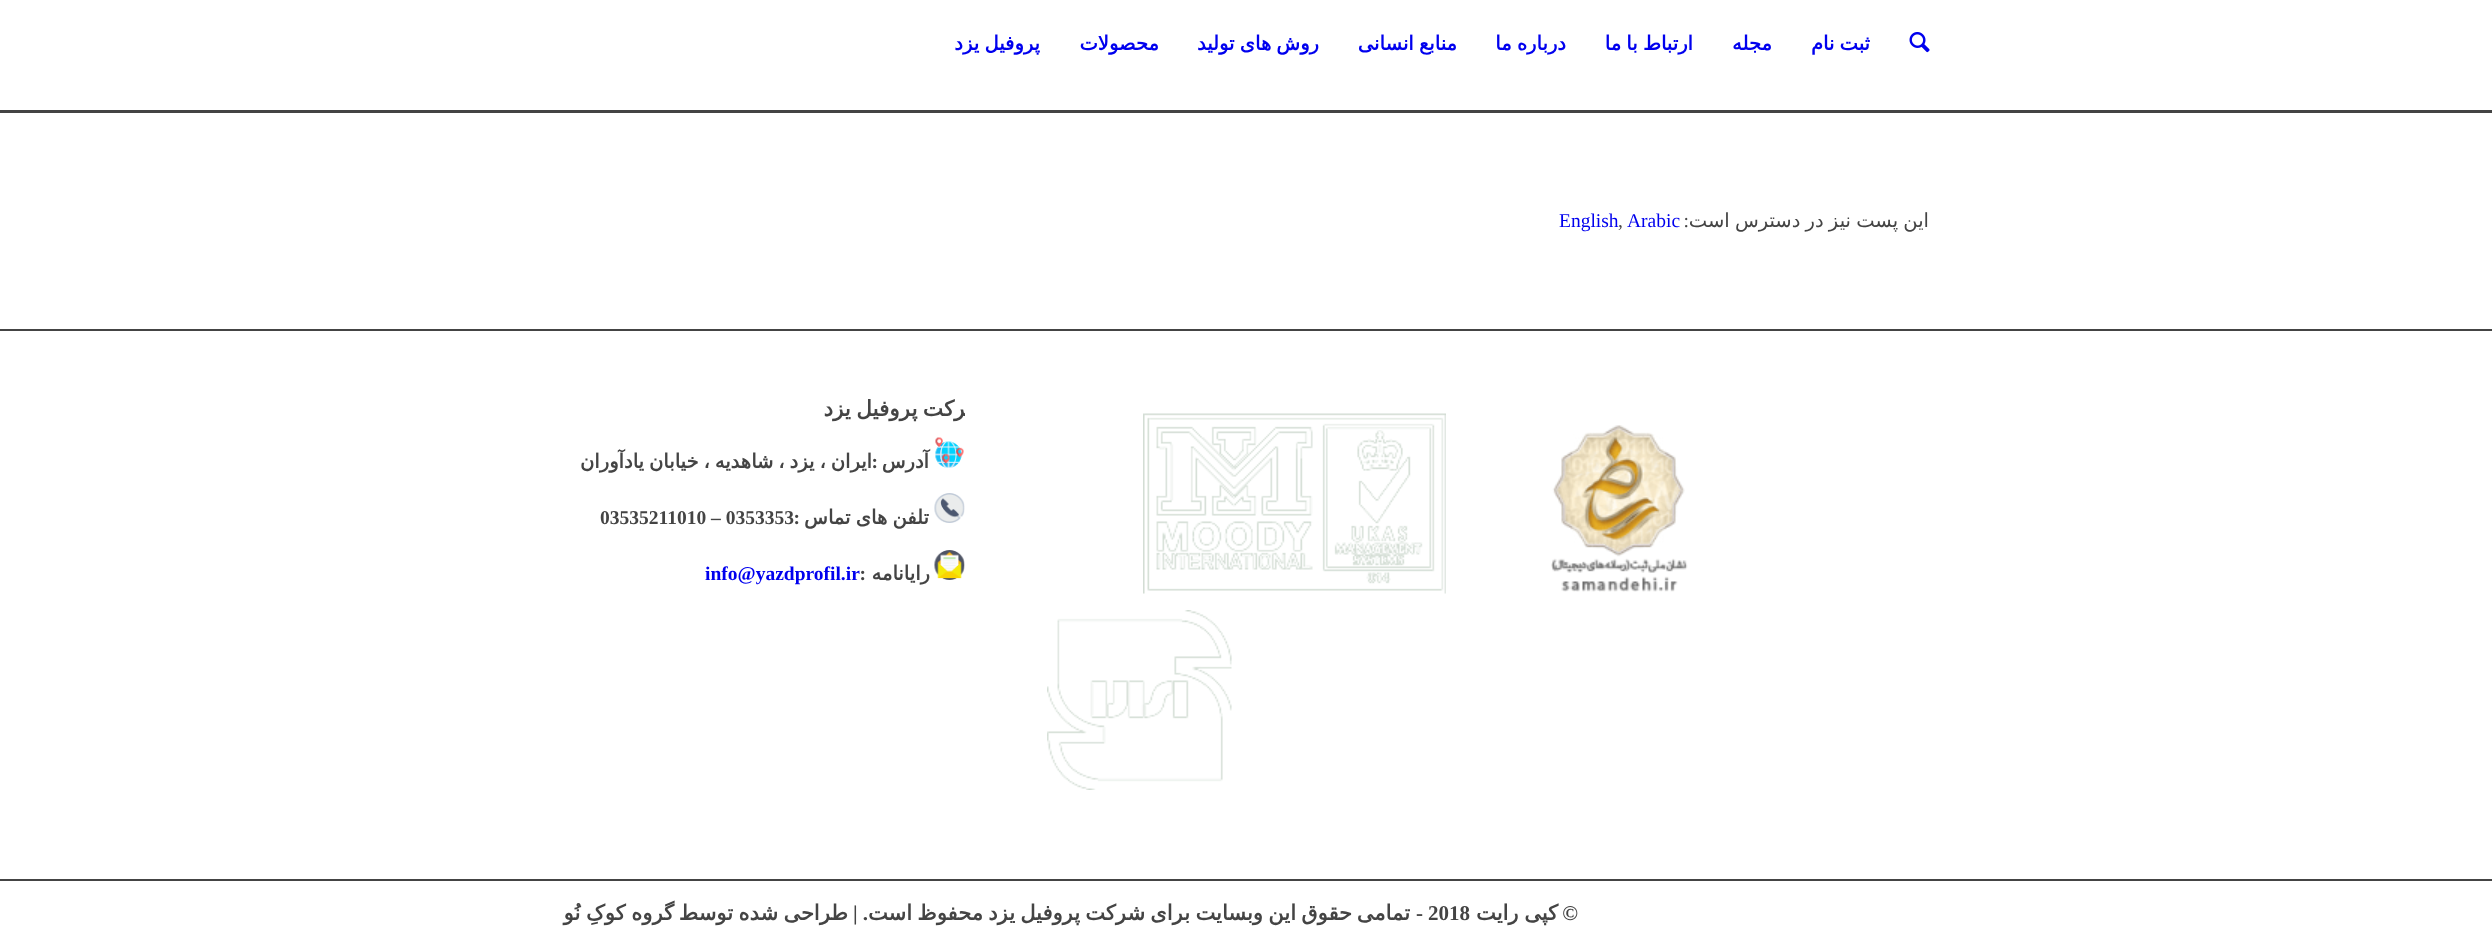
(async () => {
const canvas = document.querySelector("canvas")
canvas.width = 2492
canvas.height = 939
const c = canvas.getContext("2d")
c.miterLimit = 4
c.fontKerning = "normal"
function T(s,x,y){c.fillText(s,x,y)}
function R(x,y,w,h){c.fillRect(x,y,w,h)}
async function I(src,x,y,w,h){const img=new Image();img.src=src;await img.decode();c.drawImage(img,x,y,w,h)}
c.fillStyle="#fff"
R(0,0,2492,939)
await I("1.png",1909,32,21,21)
c.wordSpacing="-1px"
c.direction="rtl"
c.font="bold 19.5px DejaVu Sans"
c.fillStyle="#00e"
T("ثبت نام",1870,50)
c.wordSpacing="0px"
T("مجله",1772,50)
c.wordSpacing="-1px"
T("ارتباط با ما",1693,50)
T("درباره ما",1566,50)
T("منابع انسانی",1457,50)
T("روش های تولید",1319,50)
c.wordSpacing="0px"
T("محصولات",1159,50)
c.wordSpacing="-1px"
T("پروفیل یزد",1040,50)
c.fillStyle="#444"
R(0,110,2492,3)
c.font="19.5px DejaVu Sans"
T("این پست نیز در دسترس است",1929,227)
c.wordSpacing="0px"
c.font="19.5px Liberation Serif"
T(":",1689,227)
c.direction="ltr"
c.fillStyle="#00e"
T("Arabic",1627,227)
c.fillStyle="#444"
T(",",1618,227)
c.fillStyle="#00e"
T("English",1559,227)
c.fillStyle="#444"
R(0,329,2492,2)
await I("2.png",1551,425,137,167)
await I("3.png",1143,413,303,181)
await I("4.png",1047,610,185,180)
c.save()
c.beginPath()
c.rect(564,398,401,258)
c.clip()
c.letterSpacing="1.5px"
c.wordSpacing="-3px"
c.direction="rtl"
c.font="bold 21.5px DejaVu Sans"
T("شرکت پروفیل یزد",984,416)
c.restore()
await I("5.png",935,437,29,31)
c.direction="rtl"
c.font="bold 19.5px DejaVu Sans"
T("آدرس",929,468)
c.wordSpacing="-1.25px"
T("ایران ، یزد ، شاهدیه ، خیابان یادآوران",872,468)
c.wordSpacing="0px"
c.font="bold 19.5px Liberation Serif"
T(":",878,468)
await I("6.png",934,493,31,30)
c.wordSpacing="-1px"
c.font="bold 19.5px DejaVu Sans"
T("تلفن های تماس",929,524)
c.wordSpacing="0px"
c.font="bold 19.5px Liberation Serif"
T(":",800,524)
c.direction="ltr"
T("03535211010 – 0353353",600,524)
await I("7.png",934,550,31,30)
c.direction="rtl"
c.font="bold 19.5px DejaVu Sans"
T("رایانامه",930,580)
c.font="bold 19.5px Liberation Serif"
T(":",866,580)
c.direction="ltr"
c.fillStyle="#00e"
T("info@yazdprofil.ir",705,580)
c.fillStyle="#444"
R(0,879,2492,2)
c.direction="rtl"
c.font="bold 21px Liberation Serif"
T("©",1578,920)
c.wordSpacing="-1px"
c.font="bold 21px DejaVu Sans"
T("کپی رایت",1558,920)
c.wordSpacing="0px"
c.direction="ltr"
c.font="bold 21px Liberation Serif"
T("2018",1428,920)
c.direction="rtl"
T("-",1423,920)
c.font="bold 21px DejaVu Sans"
T("تمامی",1410,920)
T("حقوق",1352,920)
T("این",1296,920)
T("وبسایت",1263,920)
T("برای",1190,920)
T("شرکت",1145,920)
T("پروفیل",1080,920)
T("یزد",1015,920)
T("محفوظ",983,920)
T("است",912,920)
c.font="bold 21px Liberation Serif"
T(". |",868,920)
c.font="bold 21px DejaVu Sans"
T("طراحی",848,920)
T("شده",778,920)
T("توسط",733,920)
c.wordSpacing="-1px"
T("گروه کوکِ نُو",674,920)
})()
